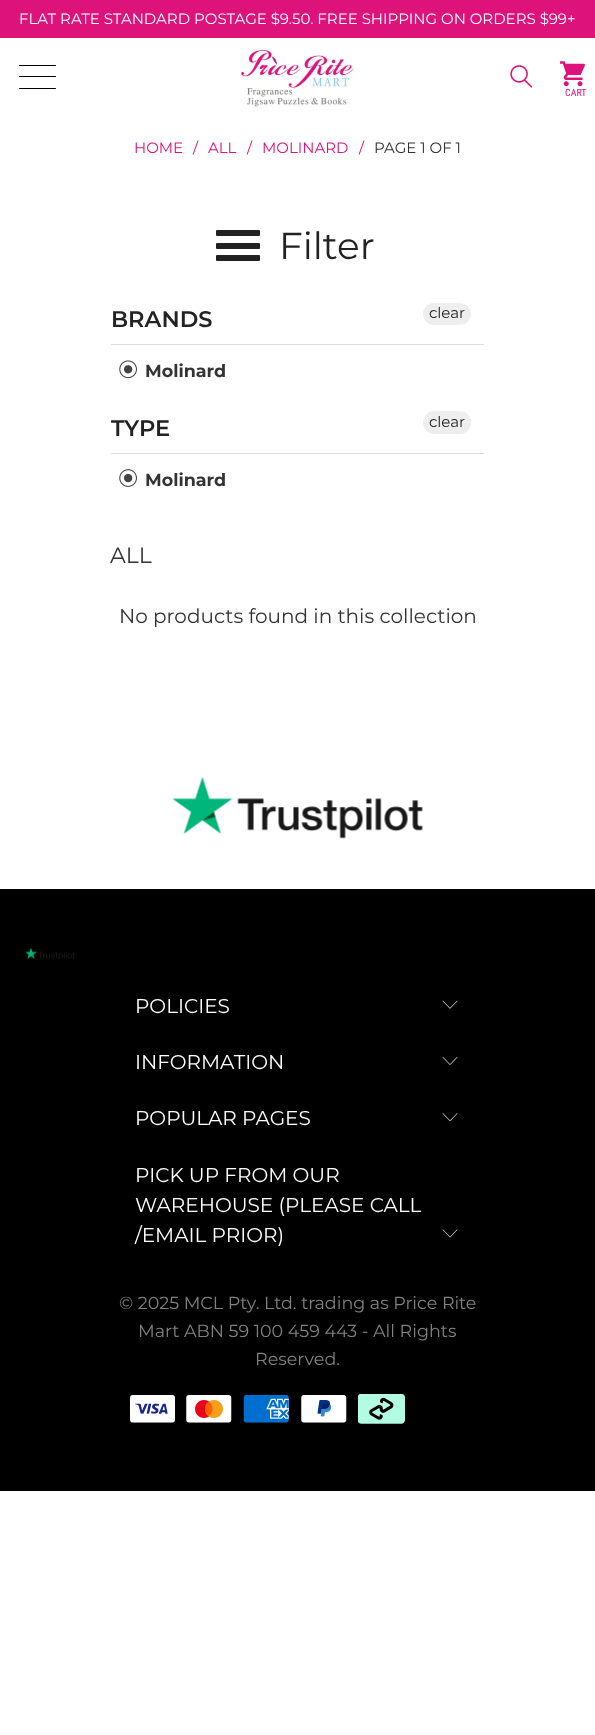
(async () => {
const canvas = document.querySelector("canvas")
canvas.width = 595
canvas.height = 1735
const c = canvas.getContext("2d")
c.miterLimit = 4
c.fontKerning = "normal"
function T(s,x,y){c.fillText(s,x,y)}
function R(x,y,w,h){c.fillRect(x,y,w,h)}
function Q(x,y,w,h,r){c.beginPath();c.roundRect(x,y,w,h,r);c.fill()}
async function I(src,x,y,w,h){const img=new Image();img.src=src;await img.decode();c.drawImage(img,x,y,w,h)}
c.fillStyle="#fff"
R(0,0,595,1735)
c.fillStyle="#dd137b"
R(0,0,595,38)
c.font="15px Montserrat"
c.fillStyle="#fff"
T("FLAT RATE STANDARD POSTAGE $9.50. FREE SHIPPING ON ORDERS $99+",19,24)
c.fillStyle="#000"
Q(19,65,37,1,.5)
Q(19,76,37,1,.5)
Q(19,88,37,1,.5)
await I("1.png",241,49,113,58)
await I("2.png",510,65,23,23)
await I("3.png",560,61,25,25)
c.font="10px Roboto Condensed"
c.fillStyle="#dd137b"
T("CART",565,96)
c.font="15px Montserrat"
T("HOME",134,153)
T("/",193,153)
T("ALL",208,153)
T("/",247,153)
T("MOLINARD",262,153)
T("/",359,153)
c.fillStyle="#333"
T("PAGE 1 OF 1",374,153)
c.fillStyle="#222"
Q(216,243,44,6,1)
Q(216,230,44,6,1)
Q(216,255,44,6,1)
c.font="37.5px Montserrat"
T("Filter",279,259)
c.fillStyle="#ddd"
R(111,344,373,1)
c.font="600 22.5px Montserrat"
c.fillStyle="#222"
T("BRANDS",111,327)
c.fillStyle="#eee"
Q(423,303,48,22,11)
c.font="15px Montserrat"
c.fillStyle="#222"
T("clear",429,318)
await I("4.png",119,360,18,19)
c.font="bold 17.5px Montserrat"
c.fillStyle="#333"
T("Molinard",145,377)
c.fillStyle="#ddd"
R(111,453,373,1)
c.font="600 22.5px Montserrat"
c.fillStyle="#222"
T("TYPE",111,436)
c.fillStyle="#eee"
Q(423,411,48,23,11.5)
c.font="15px Montserrat"
c.fillStyle="#222"
T("clear",429,427)
await I("5.png",119,469,18,18)
c.font="bold 17.5px Montserrat"
c.fillStyle="#333"
T("Molinard",145,486)
c.font="22px Montserrat"
T("ALL",110,563)
c.font="20px Montserrat"
T("No products found in this collection",119,623)
await I("6.png",172,777,251,62)
c.fillStyle="#000"
R(0,889,595,602)
await I("7.png",25,947,50,13)
c.fillStyle="#fff"
T("POLICIES",135,1013)
await I("8.png",442,1000,16,9)
T("INFORMATION",135,1069)
await I("9.png",442,1057,16,8)
T("POPULAR PAGES",135,1125)
await I("10.png",442,1113,16,9)
T("PICK UP FROM OUR",135,1182)
T("WAREHOUSE (PLEASE CALL",135,1212)
T("/EMAIL PRIOR)",135,1242)
await I("11.png",442,1229,16,9)
c.font="17.5px Montserrat"
c.fillStyle="#828181"
T("© 2025 MCL Pty. Ltd. trading as Price Rite",119,1309)
T("Mart ABN 59 100 459 443 - All Rights",138,1337)
T("Reserved.",255,1365)
await I("12.png",130,1395,45,28)
await I("13.png",186,1395,46,28)
await I("14.png",243,1395,46,28)
await I("15.png",301,1395,46,28)
await I("16.png",358,1394,47,30)
})()
